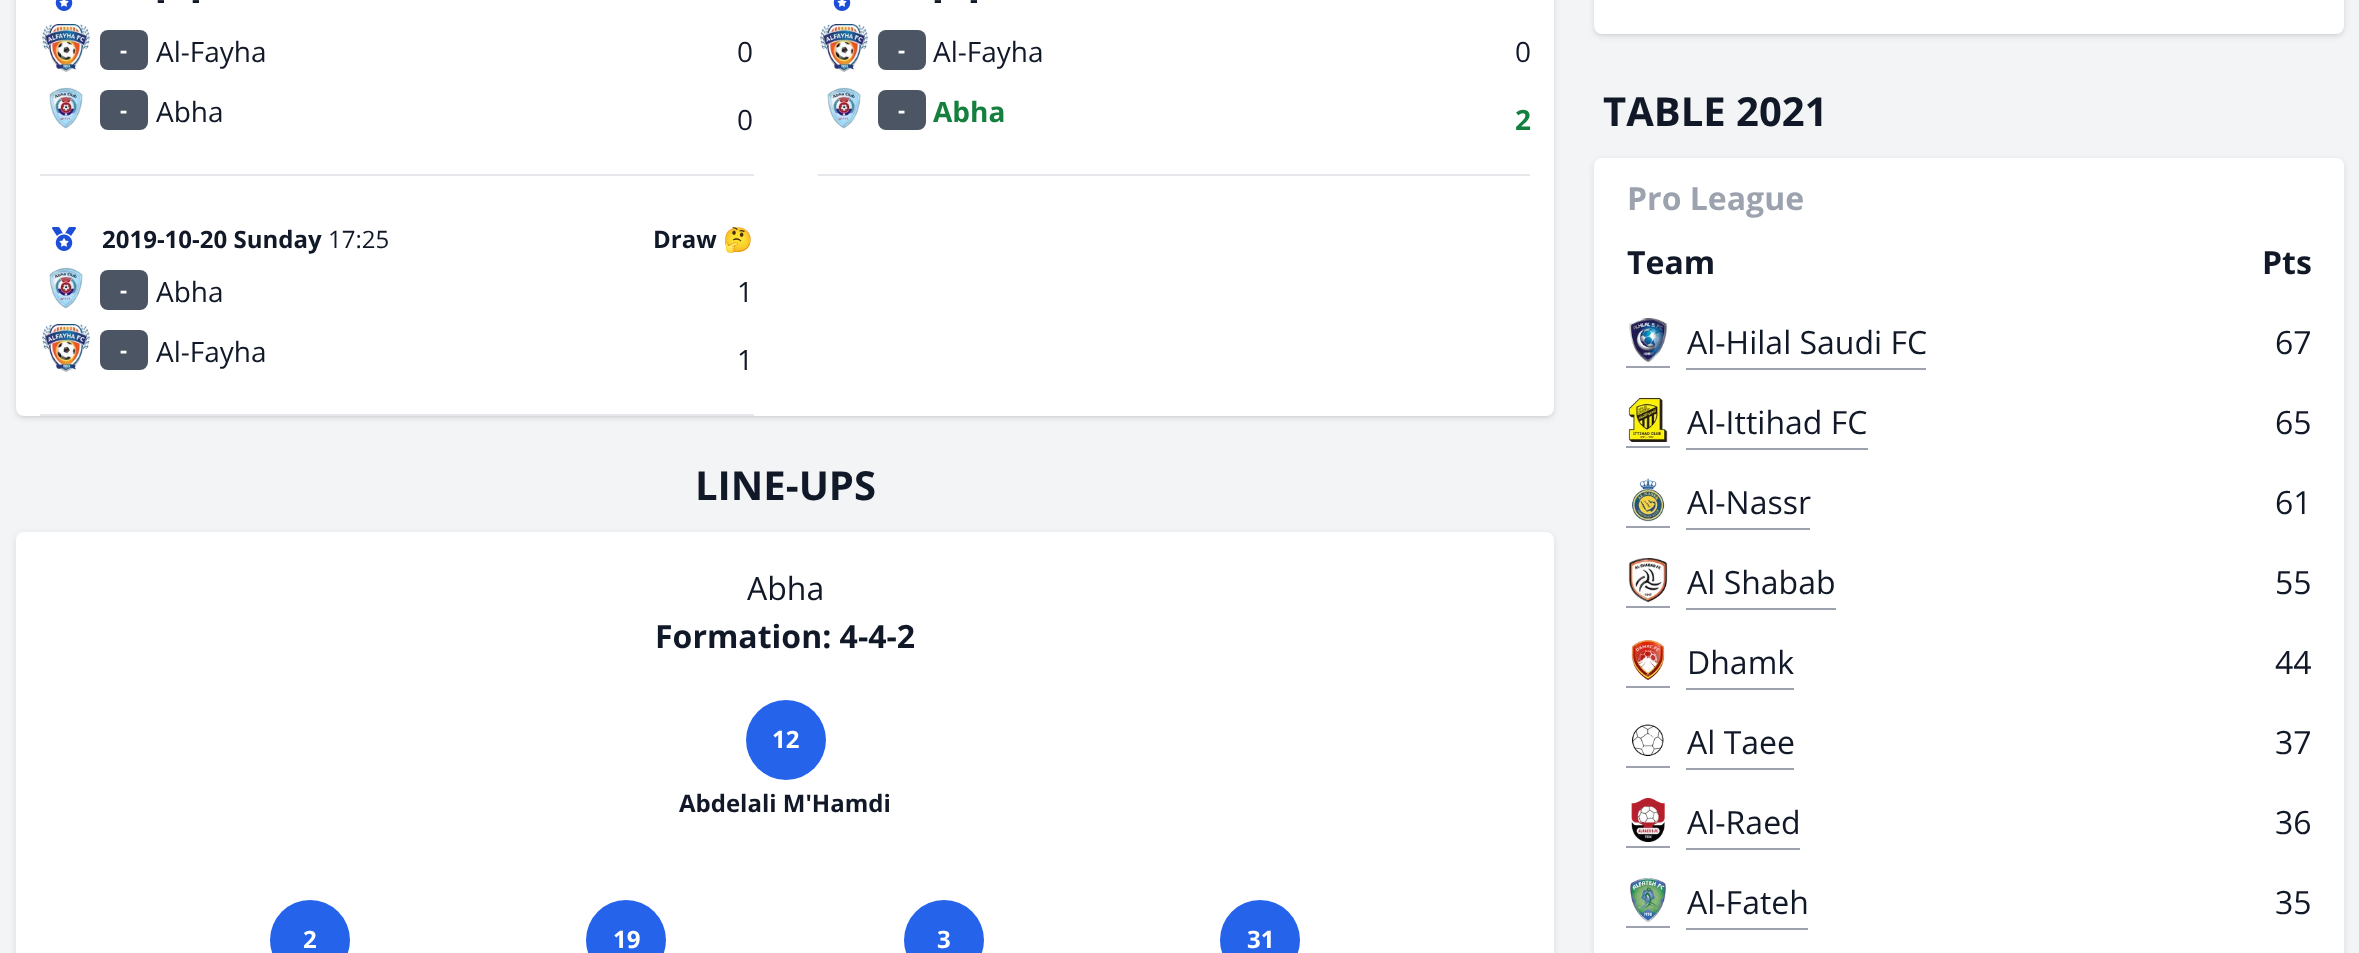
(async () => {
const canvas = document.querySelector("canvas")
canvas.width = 2359
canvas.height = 953
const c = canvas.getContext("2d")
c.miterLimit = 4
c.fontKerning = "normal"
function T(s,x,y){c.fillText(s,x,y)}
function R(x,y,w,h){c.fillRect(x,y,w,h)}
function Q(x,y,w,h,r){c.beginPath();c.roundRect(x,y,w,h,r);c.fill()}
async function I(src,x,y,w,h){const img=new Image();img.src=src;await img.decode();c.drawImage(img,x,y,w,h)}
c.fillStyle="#f3f4f6"
R(0,0,2359,953)
c.fillStyle="#0000001a"
c.filter="blur(2px)"
c.beginPath()
c.roundRect(18,-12,1534,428,6)
c.fill()
c.filter="none"
c.filter="blur(3px)"
c.beginPath()
c.roundRect(16,-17,1538,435,8)
c.fill()
c.filter="none"
c.fillStyle="#fff"
Q(16,-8,1538,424,8)
c.fillStyle="#e5e7eb"
R(40,174,714,2)
await I("1.png",55,0,18,11)
c.font="bold 24px Open Sans"
c.fillStyle="#111827"
T("-",157,8)
T("-",192,8)
await I("2.png",42,24,48,48)
c.fillStyle="#4b5563"
Q(100,30,48,40,8)
c.font="bold 22px Open Sans"
c.fillStyle="#fff"
T("-",120,58)
c.font="28px Open Sans"
c.fillStyle="#111827"
T("Al-Fayha",156,62)
T("0",737,62)
await I("3.png",49,87,34,42)
c.fillStyle="#4b5563"
Q(100,90,48,40,8)
c.font="bold 22px Open Sans"
c.fillStyle="#fff"
T("-",120,118)
c.font="28px Open Sans"
c.fillStyle="#111827"
T("Abha",156,122)
T("0",737,130)
c.fillStyle="#e5e7eb"
R(818,174,712,2)
await I("1.png",833,0,18,11)
c.font="bold 24px Open Sans"
c.fillStyle="#111827"
T("-",934,8)
T("-",970,8)
await I("4.png",820,24,48,48)
c.fillStyle="#4b5563"
Q(878,30,48,40,8)
c.font="bold 22px Open Sans"
c.fillStyle="#fff"
T("-",898,58)
c.font="28px Open Sans"
c.fillStyle="#111827"
T("Al-Fayha",933,62)
T("0",1515,62)
await I("5.png",827,87,34,42)
c.fillStyle="#4b5563"
Q(878,90,48,40,8)
c.font="bold 22px Open Sans"
c.fillStyle="#fff"
T("-",898,118)
c.font="bold 28px Open Sans"
c.fillStyle="#15803d"
T("Abha",933,122)
T("2",1515,130)
c.fillStyle="#e5e7eb"
R(40,414,714,2)
await I("6.png",52,227,24,24)
c.font="bold 24px Open Sans"
c.fillStyle="#111827"
T("2019-10-20 Sunday",102,248)
c.font="24px Open Sans"
T("17:25",328,248)
c.font="bold 24px Open Sans"
T("Draw",653,248)
c.font="bold 24px Noto Color Emoji"
T("🤔",723,248)
await I("3.png",49,267,34,42)
c.fillStyle="#4b5563"
Q(100,270,48,40,8)
c.font="bold 22px Open Sans"
c.fillStyle="#fff"
T("-",120,298)
c.font="28px Open Sans"
c.fillStyle="#111827"
T("Abha",156,302)
T("1",737,302)
await I("2.png",42,324,48,48)
c.fillStyle="#4b5563"
Q(100,330,48,40,8)
c.font="bold 22px Open Sans"
c.fillStyle="#fff"
T("-",120,358)
c.font="28px Open Sans"
c.fillStyle="#111827"
T("Al-Fayha",156,362)
T("1",737,370)
c.font="bold 40px Open Sans"
T("LINE-UPS",695,500)
c.fillStyle="#0000001a"
c.filter="blur(3px)"
c.beginPath()
c.roundRect(16,534,1538,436,8)
c.fill()
c.filter="none"
c.fillStyle="#fff"
Q(16,532,1538,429,8)
c.font="32px Open Sans"
c.fillStyle="#111827"
T("Abha",747,600)
c.font="bold 32px Open Sans"
T("Formation: 4-4-2",655,648)
c.fillStyle="#2563eb"
c.beginPath()
c.arc(786,740,40,0,7)
c.fill()
c.font="bold 24px Open Sans"
c.fillStyle="#fff"
T("12",772,748)
c.fillStyle="#111827"
T("Abdelali M'Hamdi",679,812)
c.fillStyle="#2563eb"
c.beginPath()
c.arc(310,940,40,0,7)
c.fill()
c.fillStyle="#fff"
T("2",303,948)
c.fillStyle="#2563eb"
c.beginPath()
c.arc(626,940,40,0,7)
c.fill()
c.fillStyle="#fff"
T("19",613,948)
c.fillStyle="#2563eb"
c.beginPath()
c.arc(944,940,40,0,7)
c.fill()
c.fillStyle="#fff"
T("3",937,948)
c.fillStyle="#2563eb"
c.beginPath()
c.arc(1260,940,40,0,7)
c.fill()
c.fillStyle="#fff"
T("31",1247,948)
c.fillStyle="#0000001a"
c.filter="blur(2px)"
c.beginPath()
c.roundRect(1596,-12,746,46,6)
c.fill()
c.filter="none"
c.filter="blur(3px)"
c.beginPath()
c.roundRect(1594,-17,750,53,8)
c.fill()
c.filter="none"
c.fillStyle="#fff"
Q(1594,-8,750,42,8)
c.font="bold 40px Open Sans"
c.fillStyle="#111827"
T("TABLE 2021",1603,126)
c.fillStyle="#0000001a"
c.filter="blur(3px)"
c.beginPath()
c.roundRect(1594,160,750,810,8)
c.fill()
c.filter="none"
c.fillStyle="#fff"
Q(1594,158,750,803,8)
c.font="bold 32px Open Sans"
c.fillStyle="#9ca3af"
T("Pro League",1627,210)
c.fillStyle="#111827"
T("Team",1627,274)
T("Pts",2262,274)
c.fillStyle="#9ca3af"
R(1626,366,44,2)
R(1686,368,240,2)
await I("7.png",1629,318,39,44)
c.font="32px Open Sans"
c.fillStyle="#111827"
T("Al-Hilal Saudi FC",1687,354)
T("67",2275,354)
c.fillStyle="#9ca3af"
R(1626,446,44,2)
R(1686,448,182,2)
await I("8.png",1628,398,40,44)
c.fillStyle="#111827"
T("Al-Ittihad FC",1687,434)
T("65",2275,434)
c.fillStyle="#9ca3af"
R(1626,526,44,2)
R(1686,528,124,2)
await I("9.png",1631,478,34,44)
c.fillStyle="#111827"
T("Al-Nassr",1687,514)
T("61",2275,514)
c.fillStyle="#9ca3af"
R(1626,606,44,2)
R(1686,608,150,2)
await I("10.png",1628,558,40,44)
c.fillStyle="#111827"
T("Al Shabab",1687,594)
T("55",2275,594)
c.fillStyle="#9ca3af"
R(1626,686,44,2)
R(1686,688,108,2)
await I("11.png",1631,640,34,41)
c.fillStyle="#111827"
T("Dhamk",1687,674)
T("44",2275,674)
c.fillStyle="#9ca3af"
R(1626,766,44,2)
R(1686,768,108,2)
await I("12.png",1631,724,33,33)
c.fillStyle="#111827"
T("Al Taee",1687,754)
T("37",2275,754)
c.fillStyle="#9ca3af"
R(1626,846,44,2)
R(1686,848,114,2)
await I("13.png",1631,798,34,44)
c.fillStyle="#111827"
T("Al-Raed",1687,834)
T("36",2275,834)
c.fillStyle="#9ca3af"
R(1626,926,44,2)
R(1686,928,122,2)
await I("14.png",1630,878,36,44)
c.fillStyle="#111827"
T("Al-Fateh",1687,914)
T("35",2275,914)
})()
